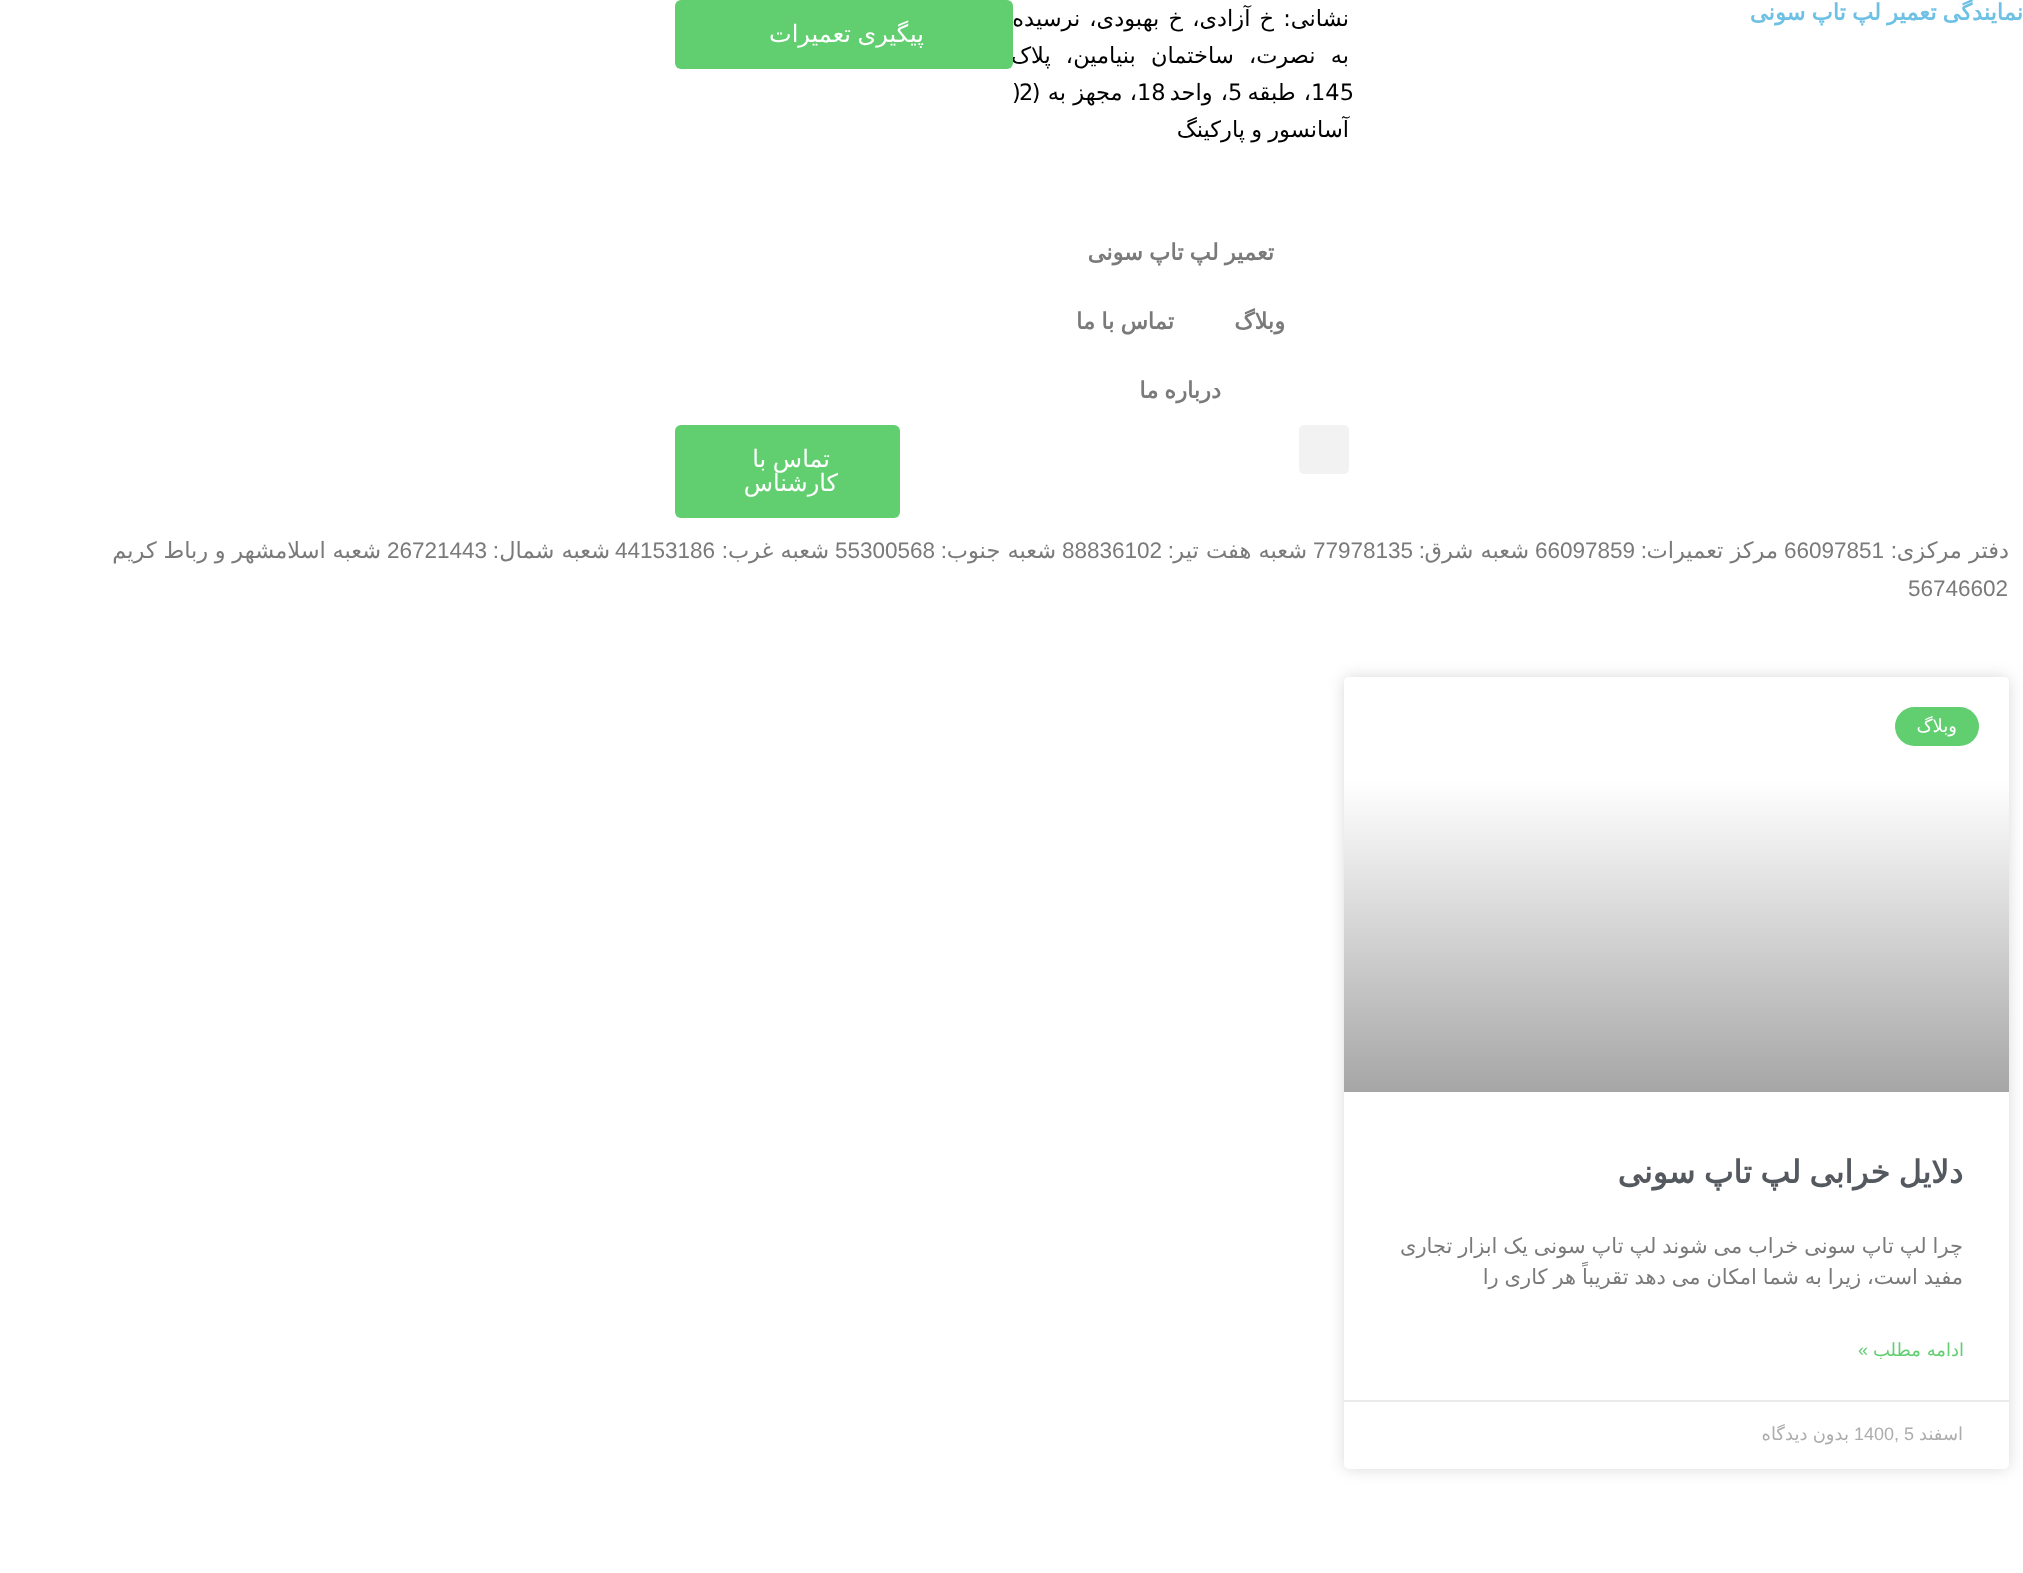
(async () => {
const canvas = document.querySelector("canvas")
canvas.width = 2023
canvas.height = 1573
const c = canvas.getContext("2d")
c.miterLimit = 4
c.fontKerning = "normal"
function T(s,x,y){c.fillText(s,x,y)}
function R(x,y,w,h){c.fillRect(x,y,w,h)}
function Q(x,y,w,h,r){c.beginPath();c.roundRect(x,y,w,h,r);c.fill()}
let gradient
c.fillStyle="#fff"
R(0,0,2023,1573)
c.wordSpacing="-1px"
c.direction="rtl"
c.font="bold 22.5px DejaVu Sans"
c.fillStyle="#6ec1e4"
T("نمایندگی تعمیر لپ تاپ سونی",2023,20)
c.wordSpacing="2px"
c.font="22.5px DejaVu Sans"
c.fillStyle="#000"
T("نشانی: خ آزادی، خ بهبودی، نرسیده",1349,26)
c.wordSpacing="8px"
T("به نصرت، ساختمان بنیامین، پلاک",1349,63)
c.wordSpacing="0px"
c.direction="ltr"
T("145",1311,100)
c.wordSpacing="1px"
c.direction="rtl"
T("، طبقه",1311,100)
c.wordSpacing="0px"
c.direction="ltr"
T("5",1228,100)
c.wordSpacing="1px"
c.direction="rtl"
T("، واحد",1228,100)
c.wordSpacing="0px"
c.direction="ltr"
T("18",1137,100)
c.direction="rtl"
T("، مجهز به (",1137,100)
c.direction="ltr"
T("2",1019,100)
T(")",1012,100)
c.wordSpacing="-1px"
c.direction="rtl"
T("آسانسور و پارکینگ",1349,137)
c.font="bold 22.5px DejaVu Sans"
c.fillStyle="#7a7a7a"
T("تعمیر لپ تاپ سونی",1274,260)
c.wordSpacing="0px"
T("وبلاگ",1285,329)
c.wordSpacing="-1px"
T("تماس با ما",1174,329)
T("درباره ما",1221,398)
c.fillStyle="#61ce70"
Q(675,0,338,69,6)
c.font="24px DejaVu Sans"
c.fillStyle="#fff"
T("پیگیری تعمیرات",924,42)
c.fillStyle="#f2f2f2"
Q(1299,425,50,49,5)
c.fillStyle="#61ce70"
Q(675,425,225,93,6)
c.fillStyle="#fff"
T("تماس با",830,467)
c.wordSpacing="0px"
T("کارشناس",838,491)
c.font="22.5px DejaVu Sans"
c.fillStyle="#7a7a7a"
T("دفتر مرکزی",2009,558)
c.font="22.5px Liberation Sans"
T(":",1897,558)
c.direction="ltr"
T("66097851",1784,558)
c.direction="rtl"
c.font="22.5px DejaVu Sans"
T("مرکز تعمیرات",1778,558)
c.font="22.5px Liberation Sans"
T(":",1647,558)
c.direction="ltr"
T("66097859",1535,558)
c.direction="rtl"
c.font="22.5px DejaVu Sans"
T("شعبه شرق",1529,558)
c.font="22.5px Liberation Sans"
T(":",1425,558)
c.direction="ltr"
T("77978135",1313,558)
c.direction="rtl"
c.font="22.5px DejaVu Sans"
T("شعبه هفت تیر",1307,558)
c.font="22.5px Liberation Sans"
T(":",1174,558)
c.direction="ltr"
T("88836102",1062,558)
c.direction="rtl"
c.font="22.5px DejaVu Sans"
T("شعبه جنوب",1056,558)
c.font="22.5px Liberation Sans"
T(":",947,558)
c.direction="ltr"
T("55300568",835,558)
c.direction="rtl"
c.font="22.5px DejaVu Sans"
T("شعبه غرب",829,558)
c.font="22.5px Liberation Sans"
T(":",728,558)
c.direction="ltr"
T("44153186",615,558)
c.direction="rtl"
c.font="22.5px DejaVu Sans"
T("شعبه شمال",610,558)
c.font="22.5px Liberation Sans"
T(":",499,558)
c.direction="ltr"
T("26721443",387,558)
c.wordSpacing="-0.5px"
c.direction="rtl"
c.font="22.5px DejaVu Sans"
T("شعبه اسلامشهر و رباط کریم",381,558)
c.wordSpacing="0px"
c.direction="ltr"
c.font="22.5px Liberation Sans"
T("56746602",1908,596)
c.fillStyle="#00000026"
c.filter="blur(7.5px)"
c.beginPath()
c.roundRect(1344,677,665,792,5)
c.fill()
c.filter="none"
c.fillStyle="#fff"
Q(1344,677,665,792,5)
gradient = c.createLinearGradient(1676,1092,1676,677)
gradient.addColorStop(0,"#a6a6a6")
gradient.addColorStop(.75,"#fff")
c.fillStyle = gradient
c.beginPath()
c.roundRect(1344,677,665,415,[5,5,0,0])
c.fill()
c.fillStyle="#61ce70"
Q(1895,707,84,39,19.5)
c.direction="rtl"
c.font="18px DejaVu Sans"
c.fillStyle="#fff"
T("وبلاگ",1957,732)
c.wordSpacing="-1.5px"
c.font="bold 31.5px DejaVu Sans"
c.fillStyle="#54595f"
T("دلایل خرابی لپ تاپ سونی",1963,1183)
c.wordSpacing="-0.8px"
c.font="21px DejaVu Sans"
c.fillStyle="#7a7a7a"
T("چرا لپ تاپ سونی خراب می شوند لپ تاپ سونی یک ابزار تجاری",1963,1253)
T("مفید است، زیرا به شما امکان می دهد تقریباً هر کاری را",1963,1284)
c.wordSpacing="0px"
c.font="18px DejaVu Sans"
c.fillStyle="#61ce70"
T("ادامه مطلب",1964,1356)
c.font="18px Liberation Sans"
T("»",1868,1356)
c.fillStyle="#eaeaea"
R(1344,1400,665,2)
c.font="18px DejaVu Sans"
c.fillStyle="#adadad"
T("اسفند",1963,1440)
c.direction="ltr"
c.font="18px Liberation Sans"
T("1400, 5",1854,1440)
c.wordSpacing="-0.5px"
c.direction="rtl"
c.font="18px DejaVu Sans"
T("بدون دیدگاه",1849,1440)
})()
